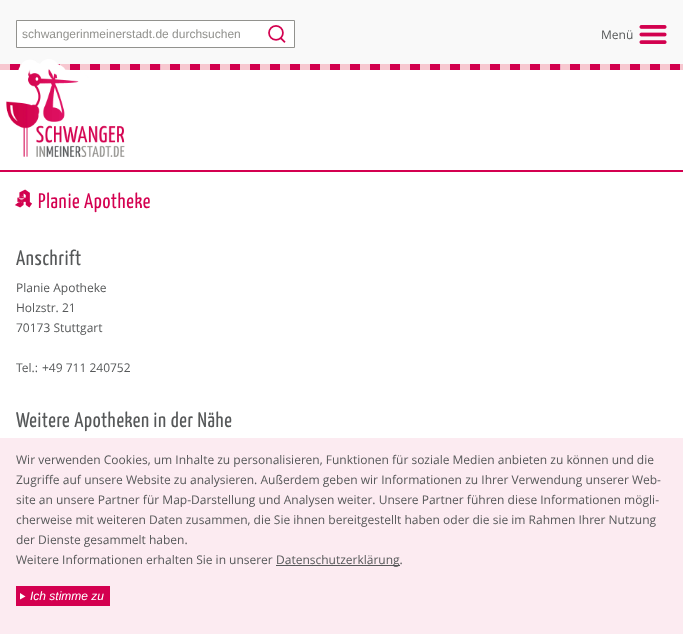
(async () => {
const canvas = document.querySelector("canvas")
canvas.width = 683
canvas.height = 634
const c = canvas.getContext("2d")
c.miterLimit = 4
c.fontKerning = "normal"
function T(s,x,y){c.fillText(s,x,y)}
function R(x,y,w,h){c.fillRect(x,y,w,h)}
async function I(src,x,y,w,h){const img=new Image();img.src=src;await img.decode();c.drawImage(img,x,y,w,h)}
let path
c.fillStyle="#fff"
R(0,0,683,634)
await I("1.png",0,0,683,70)
c.beginPath()
c.rect(16.5,20.5,278,27)
c.fill()
c.strokeStyle="#92928e"
c.stroke()
c.font="12px Liberation Sans"
c.fillStyle="#92928e"
T("schwangerinmeinerstadt.de durchsuchen",22,38)
await I("2.png",268,25,18,18)
c.font="12px Open Sans"
c.fillStyle="#565859"
T("Menü",601,39)
await I("3.png",639,25,28,19)
await I("4.png",6,59,119,98)
c.fillStyle="#d40050"
R(0,170,683,2)
await I("5.png",15,189,17,19)
c.letterSpacing="0.6px"
c.font="21px Yanone Kaffeesatz"
T("Planie Apotheke",38,208)
c.fillStyle="#565859"
T("Anschrift",16,265)
c.letterSpacing="0px"
c.font="12px Open Sans"
T("Planie Apotheke",16,292)
T("Holzstr. 21",16,312)
T("70173 Stuttgart",16,332)
T("Tel.:",16,372)
T("+49 711 240752",42,372)
c.letterSpacing="0.6px"
c.font="21px Yanone Kaffeesatz"
T("Weitere Apotheken in der Nähe",16,427)
c.fillStyle="#fcebf1"
R(0,438,683,196)
c.letterSpacing="0px"
c.font="12px Open Sans"
c.fillStyle="#565859"
T("Wir verwenden Cookies, um Inhalte zu personalisieren, Funktionen für soziale Medien anbieten zu können und die",16,464)
c.wordSpacing="0.1px"
T("Zugriffe auf unsere Website zu analysieren. Außerdem geben wir Informationen zu Ihrer Verwendung unserer Web-",16,484)
c.wordSpacing="0px"
T("site an unsere Partner für Map-Darstellung und Analysen weiter. Unsere Partner führen diese Informationen mögli-",16,504)
T("cherweise mit weiteren Daten zusammen, die Sie ihnen bereitgestellt haben oder die sie im Rahmen Ihrer Nutzung",16,524)
T("der Dienste gesammelt haben.",16,544)
T("Weitere Informationen erhalten Sie in unserer",16,564)
R(276,565,124,1)
T("Datenschutzerklärung.",276,564)
c.fillStyle="#d40050"
R(16,586,94,20)
c.fillStyle="#fff"
path = new Path2D("M20 593l5.5 3.5l-5.5 3z")
c.fill(path)
c.font="italic 12px Liberation Sans"
T("Ich stimme zu",30,600)
})()
